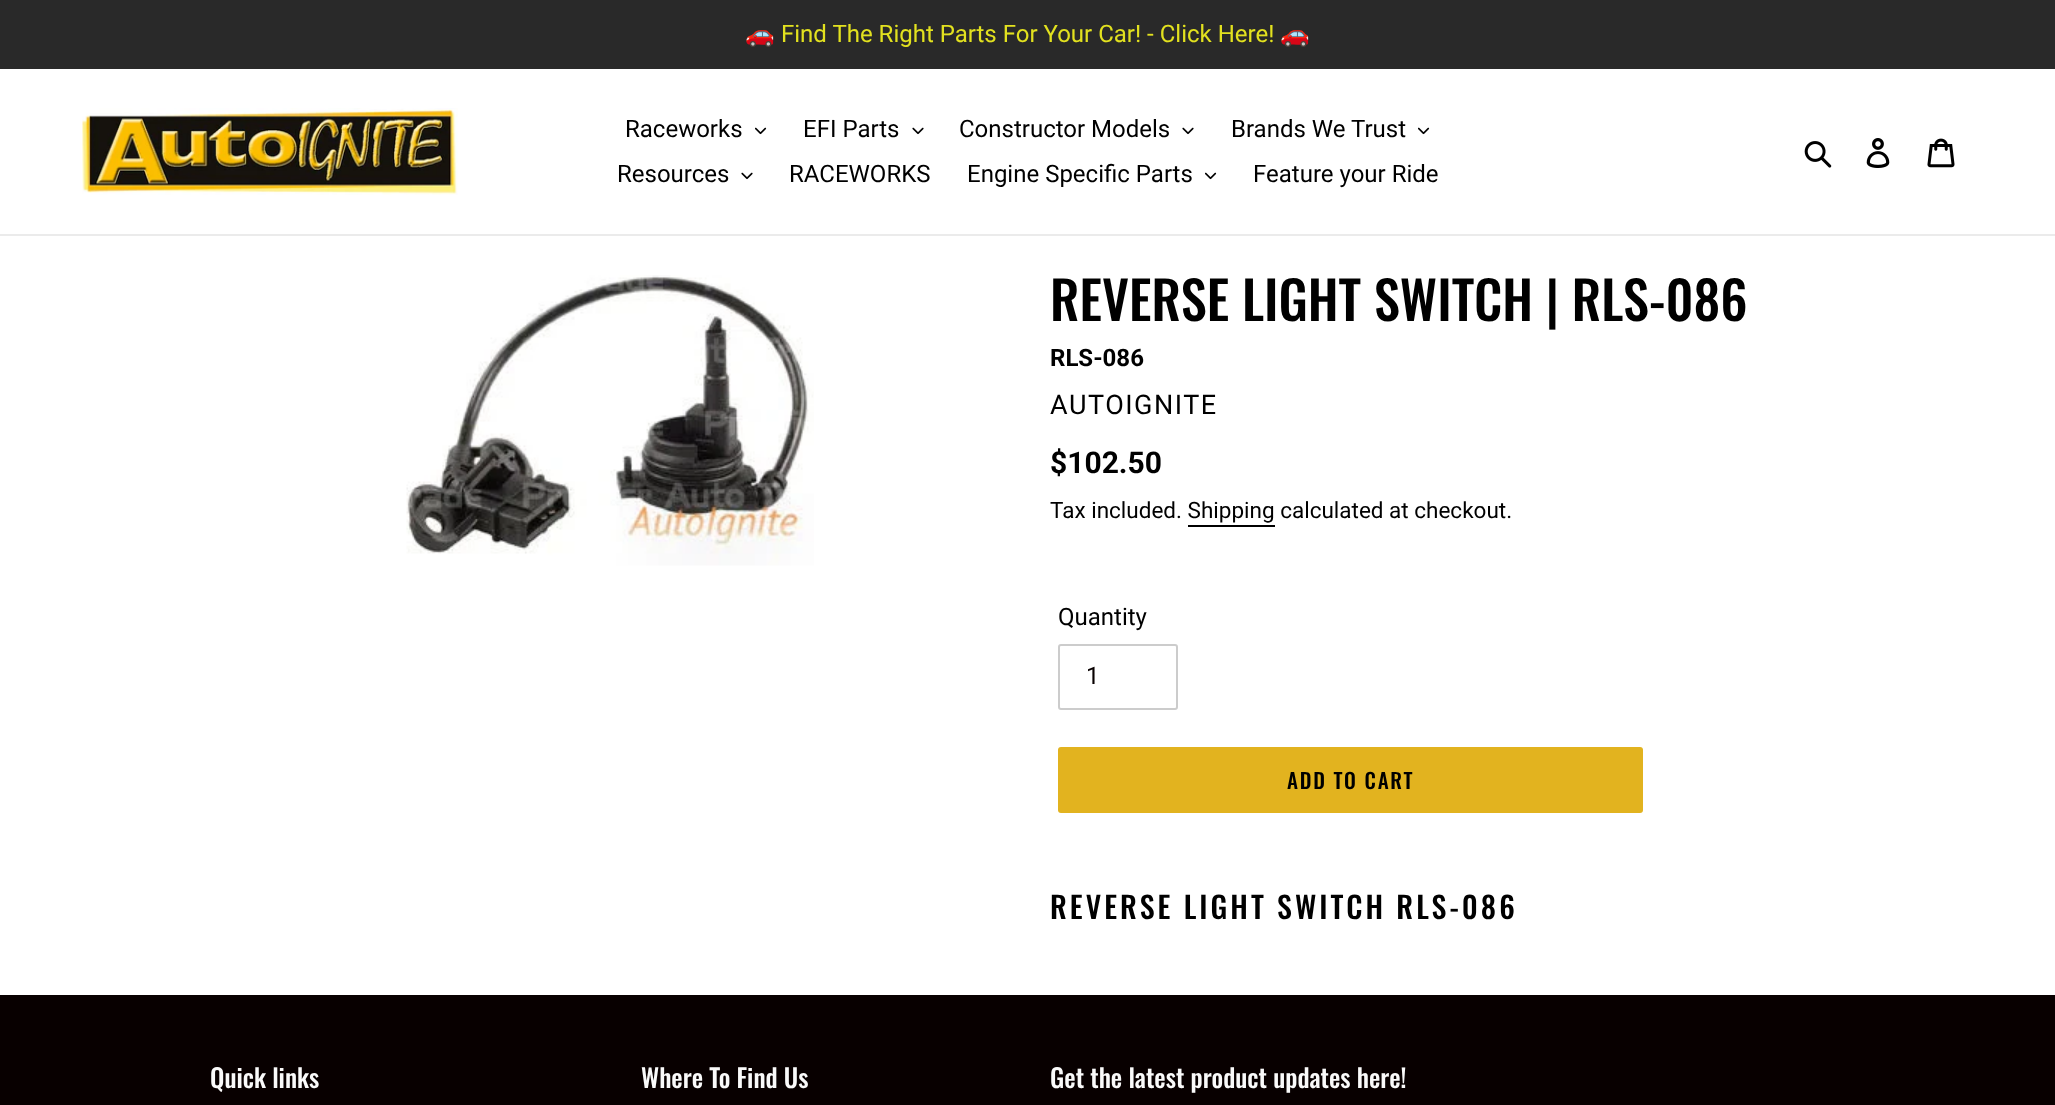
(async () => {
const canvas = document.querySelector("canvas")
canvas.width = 2055
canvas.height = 1105
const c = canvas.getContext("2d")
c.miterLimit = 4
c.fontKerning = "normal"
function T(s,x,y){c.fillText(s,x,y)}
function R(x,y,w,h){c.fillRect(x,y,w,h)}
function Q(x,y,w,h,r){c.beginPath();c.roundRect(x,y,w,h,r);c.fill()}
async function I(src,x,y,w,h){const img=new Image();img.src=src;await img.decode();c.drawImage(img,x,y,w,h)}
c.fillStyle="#fff"
R(0,0,2055,1105)
c.fillStyle="#292929"
R(0,0,2055,69)
c.font="24px Noto Color Emoji"
c.fillStyle="#e2e11f"
T("🚗",745,42)
c.font="24px Roboto"
T("Find The Right Parts For Your Car! - Click Here!",781,42)
c.font="24px Noto Color Emoji"
T("🚗",1280,42)
c.fillStyle="#ebebeb"
R(0,234,2055,2)
await I("1.png",82,108,376,87)
c.font="24px Roboto"
c.fillStyle="#000"
T("Raceworks",625,137)
await I("2.png",755,127,12,8)
T("EFI Parts",803,137)
await I("3.png",912,127,12,8)
T("Constructor Models",959,137)
await I("3.png",1182,127,12,8)
T("Brands We Trust",1231,137)
await I("2.png",1418,127,12,8)
T("Resources",617,182)
await I("3.png",741,172,12,8)
T("RACEWORKS",789,182)
T("Engine Specific Parts",967,182)
await I("2.png",1205,172,12,8)
T("Feature your Ride",1253,182)
await I("4.png",1804,141,28,27)
await I("5.png",1866,138,24,30)
await I("6.png",1927,138,28,30)
await I("7.png",406,275,408,291)
c.font="500 52.5px Oswald"
T("REVERSE LIGHT SWITCH | RLS-086",1050,321)
c.font="bold 24px Roboto"
T("RLS-086",1050,366)
c.letterSpacing="1.5px"
c.font="27px Roboto"
T("AUTOIGNITE",1050,414)
c.letterSpacing="0px"
c.font="bold 30px Roboto"
T("$102.50",1050,473)
c.font="22.5px Roboto"
T("Tax included. Shipping calculated at checkout.",1050,518)
R(1188,525,87,2)
c.font="24px Roboto"
T("Quantity",1058,625)
c.beginPath()
c.roundRect(1059,645,118,64,2)
c.strokeStyle="#ccc"
c.lineWidth=2
c.stroke()
c.fillStyle="#080000"
T("1",1086,684)
c.fillStyle="#e2b31f"
Q(1058,747,585,66,3)
c.letterSpacing="1.75px"
c.font="500 21px Oswald"
c.fillStyle="#000"
T("ADD TO CART",1287,789)
c.letterSpacing="3px"
c.font="500 30px Oswald"
T("REVERSE LIGHT SWITCH RLS-086",1050,919)
c.fillStyle="#080000"
R(0,995,2055,110)
c.letterSpacing="0px"
c.font="500 25.5px Oswald"
c.fillStyle="#fafafa"
T("Quick links",210,1088)
T("Where To Find Us",641,1088)
T("Get the latest product updates here!",1050,1088)
})()
